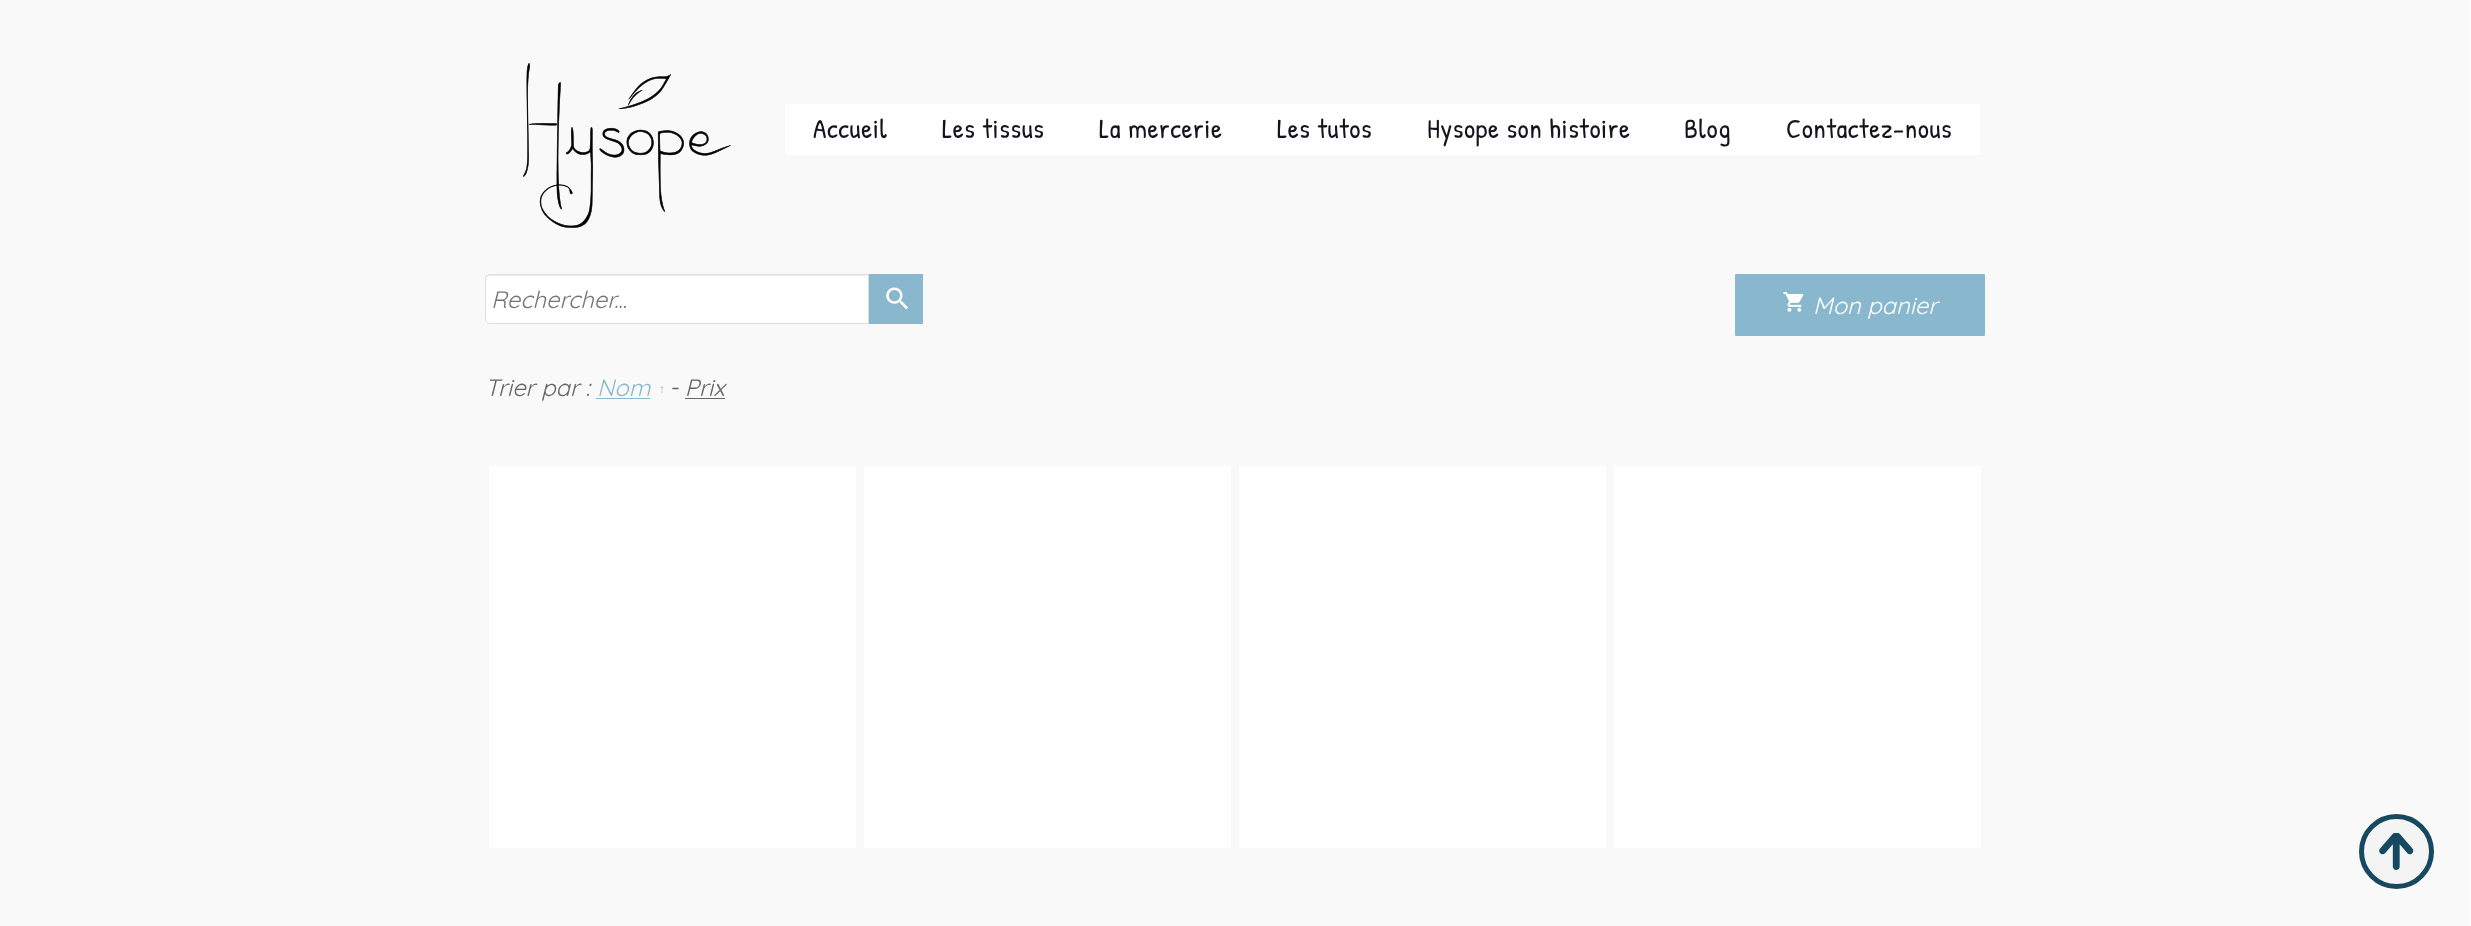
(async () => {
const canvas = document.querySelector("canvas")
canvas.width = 2471
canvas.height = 926
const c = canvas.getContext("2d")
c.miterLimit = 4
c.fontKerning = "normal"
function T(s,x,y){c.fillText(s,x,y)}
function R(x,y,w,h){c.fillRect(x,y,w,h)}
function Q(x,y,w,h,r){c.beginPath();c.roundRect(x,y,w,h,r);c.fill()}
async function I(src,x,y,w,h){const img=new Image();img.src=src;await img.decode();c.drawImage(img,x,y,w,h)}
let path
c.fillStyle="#fff"
R(0,0,2471,926)
c.fillStyle="#f9f9f9"
R(0,0,2470,926)
await I("1.png",523,63,208,165)
c.fillStyle="#fff"
R(785,104,1195,51)
c.letterSpacing="0.6px"
c.font="27.5px Patrick Hand"
c.fillStyle="#13141e"
T("Accueil",813,138)
T("Les tissus",942,138)
T("La mercerie",1099,138)
T("Les tutos",1277,138)
T("Hysope son histoire",1427,138)
T("Blog",1684,138)
T("Contactez-nous",1786,138)
c.fillStyle="#fff"
c.beginPath()
c.roundRect(485,274,384,50,[5,0,0,5])
c.fill()
c.fillStyle="#ececec"
path = new Path2D("M490 276h378v-1h-378c-3 0-4 2-4 5c0-2 2-4 4-4z")
c.fill(path)
c.beginPath()
c.roundRect(485.5,274.5,383,49,[4.5,0,0,4.5])
c.strokeStyle="#ddd"
c.stroke()
c.letterSpacing="0px"
c.font="italic 23.75px Quicksand"
c.fillStyle="#757575"
T("Rechercher...",491,308)
c.fillStyle="#89b8ce"
R(869,274,54,50)
await I("2.png",886,287,22,23)
c.fillStyle="#656565"
T("Trier par :",485,396)
c.fillStyle="#89b8ce"
T("Nom",597,396)
R(596,398,54,1)
c.font="italic 12px Liberation Serif"
T("↑",659,393)
c.font="italic 23.75px Quicksand"
c.fillStyle="#656565"
T("- Prix",669,396)
R(685,398,40,1)
c.fillStyle="#fff"
R(489,466,367,382)
R(864,466,367,382)
R(1239,466,367,382)
R(1614,466,367,382)
c.fillStyle="#89b8ce"
Q(1735,274,250,62,1)
await I("3.png",1783,292,21,20)
c.fillStyle="#fff"
T("Mon panier",1813,314)
c.fillStyle="#f4f4f4"
c.beginPath()
c.arc(2396.5,851.5,35,0,7)
c.fill()
c.strokeStyle="#164860"
c.lineWidth=5
c.stroke()
await I("4.png",2379,833,35,37)
})()
